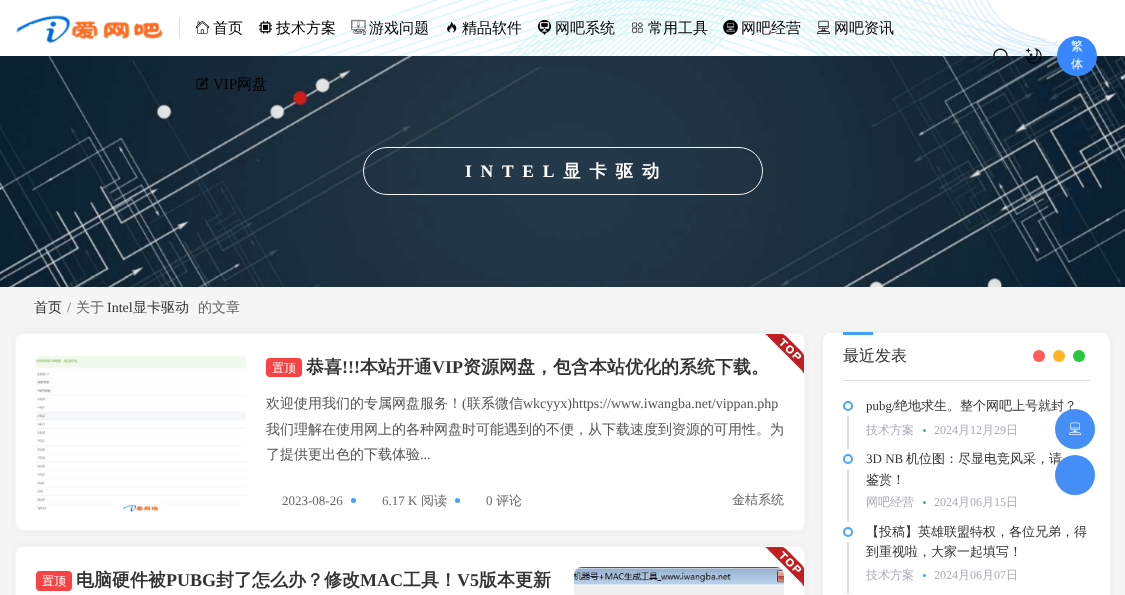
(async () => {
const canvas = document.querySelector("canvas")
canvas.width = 1125
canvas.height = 595
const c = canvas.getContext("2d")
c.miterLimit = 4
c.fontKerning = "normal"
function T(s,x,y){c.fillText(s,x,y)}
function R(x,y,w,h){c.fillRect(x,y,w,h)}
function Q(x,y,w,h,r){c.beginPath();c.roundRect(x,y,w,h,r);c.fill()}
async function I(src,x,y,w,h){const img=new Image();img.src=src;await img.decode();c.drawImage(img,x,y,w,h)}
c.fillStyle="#f5f5f5"
R(0,0,1125,595)
c.fillStyle="#fff"
R(0,0,1125,56)
await I("1.png",278,0,783,56)
await I("2.png",16,15,147,29)
c.fillStyle="#ddd"
R(179,18,1,20)
await I("3.png",195,20,15,14)
c.font="500 15px WenQuanYi Zen Hei"
c.fillStyle="#000"
T("首页",213,33)
await I("4.png",259,21,13,13)
T("技术方案",276,33)
await I("5.png",351,19,15,16)
T("游戏问题",369,33)
await I("6.png",447,22,10,11)
T("精品软件",462,33)
await I("7.png",537,19,15,16)
T("网吧系统",555,33)
await I("8.png",632,22,11,11)
T("常用工具",648,33)
await I("9.png",723,19,15,16)
T("网吧经营",741,33)
await I("10.png",817,20,13,14)
T("网吧资讯",834,33)
await I("14.png",0,56,1125,231)
await I("11.png",196,77,13,13)
c.font="15px Liberation Serif"
T("VIP",213,89)
c.font="500 15px WenQuanYi Zen Hei"
T("网盘",237,89)
await I("12.png",993,48,16,16)
await I("13.png",1026,48,16,16)
c.fillStyle="#3987fe"
c.beginPath()
c.arc(1077,56,20,0,7)
c.fill()
c.font="500 12px WenQuanYi Zen Hei"
c.fillStyle="#fff"
T("繁",1071,50)
T("体",1071,68)
c.beginPath()
c.roundRect(363.5,147.5,399,47,23.5)
c.strokeStyle="#f4f4f5"
c.stroke()
c.letterSpacing="8.75px"
c.font="bold 17.5px Liberation Serif"
T("INTEL",465,177)
c.font="bold 17.5px WenQuanYi Zen Hei"
T("显卡驱动",563,177)
c.letterSpacing="0px"
c.font="500 14px WenQuanYi Zen Hei"
c.fillStyle="#333"
T("首页",34,312)
c.font="14px Liberation Serif"
c.fillStyle="#666"
T("/",67,312)
c.font="500 14px WenQuanYi Zen Hei"
T("关于",76,312)
c.font="14px Liberation Serif"
c.fillStyle="#333"
T("Intel",107,312)
c.font="500 14px WenQuanYi Zen Hei"
T("显卡驱动",133,312)
c.fillStyle="#666"
T("的文章",198,312)
c.fillStyle="#9e9e9e33"
c.filter="blur(5px)"
c.beginPath()
c.roundRect(17,335,786,194,6)
c.fill()
c.filter="none"
c.fillStyle="#fff"
Q(15,333,790,198,8)
c.beginPath()
c.roundRect(15.5,333.5,789,197,7.5)
c.strokeStyle="#dddddd47"
c.stroke()
c.fillStyle="#f2f2f2"
Q(36,354,210,158,8)
await I("15.png",36,354,210,158)
c.fillStyle="#f64444"
Q(266,358,36,19,4)
c.font="500 12px WenQuanYi Zen Hei"
c.fillStyle="#fff"
T("置顶",272,372)
c.font="bold 18px WenQuanYi Zen Hei"
c.fillStyle="#333"
T("恭喜",306,373)
c.font="bold 18px Liberation Serif"
T("!!!",342,373)
c.font="bold 18px WenQuanYi Zen Hei"
T("本站开通",360,373)
c.font="bold 18px Liberation Serif"
T("VIP",432,373)
c.font="bold 18px WenQuanYi Zen Hei"
T("资源网盘，包含本站优化的系统下载。",463,373)
c.font="500 14px WenQuanYi Zen Hei"
c.fillStyle="#555"
T("欢迎使用我们的专属网盘服务！",266,408)
c.font="14px Liberation Serif"
T("(",462,408)
c.font="500 14px WenQuanYi Zen Hei"
T("联系微信",467,408)
c.font="14px Liberation Serif"
T("wkcyyx)https://www.iwangba.net/vippan.php",523,408)
c.font="500 14px WenQuanYi Zen Hei"
T("我们理解在使用网上的各种网盘时可能遇到的不便，从下载速度到资源的可用性。为",266,434)
T("了提供更出色的下载体验",266,459)
c.font="14px Liberation Serif"
T("...",420,459)
c.font="13px Liberation Serif"
c.fillStyle="#666"
T("2023-08-26",282,505)
c.fillStyle="#42a1ff"
c.beginPath()
c.arc(353.5,500.5,2.5,0,7)
c.fill()
c.fillStyle="#666"
T("6.17 K",382,505)
c.font="500 13px WenQuanYi Zen Hei"
T("阅读",421,505)
c.fillStyle="#42a1ff"
c.beginPath()
c.arc(457.5,500.5,2.5,0,7)
c.fill()
c.font="13px Liberation Serif"
c.fillStyle="#666"
T("0",486,505)
c.font="500 13px WenQuanYi Zen Hei"
T("评论",496,505)
T("金桔系统",732,504)
await I("16.png",765,334,39,40)
c.fillStyle="#9e9e9e33"
c.filter="blur(5px)"
c.beginPath()
c.roundRect(17,548,786,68,6)
c.fill()
c.filter="none"
c.fillStyle="#fff"
Q(15,546,790,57,8)
c.beginPath()
c.roundRect(15.5,546.5,789,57,7.5)
c.stroke()
c.fillStyle="#f64444"
Q(36,571,36,20,4)
c.font="500 12px WenQuanYi Zen Hei"
c.fillStyle="#fff"
T("置顶",42,585)
c.font="bold 18px WenQuanYi Zen Hei"
c.fillStyle="#333"
T("电脑硬件被",76,586)
c.font="bold 18px Liberation Serif"
T("PUBG",166,586)
c.font="bold 18px WenQuanYi Zen Hei"
T("封了怎么办？修改",216,586)
c.font="bold 18px Liberation Serif"
T("MAC",360,586)
c.font="bold 18px WenQuanYi Zen Hei"
T("工具！",403,586)
c.font="bold 18px Liberation Serif"
T("V5",457,586)
c.font="bold 18px WenQuanYi Zen Hei"
T("版本更新",479,586)
await I("17.png",574,567,210,28)
await I("18.png",765,547,39,40)
c.fillStyle="#9e9e9e33"
c.filter="blur(5px)"
c.beginPath()
c.roundRect(825,335,283,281,6)
c.fill()
c.filter="none"
c.fillStyle="#fff"
Q(823,333,287,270,8)
c.fillStyle="#ddd"
R(843,380,247,1)
c.fillStyle="#42a1ff"
R(843,332,30,3)
c.font="500 16px WenQuanYi Zen Hei"
c.fillStyle="#333"
T("最近发表",843,361)
c.fillStyle="#26c73d"
c.beginPath()
c.arc(1079,356,6,0,7)
c.fill()
c.fillStyle="#ffb528"
c.beginPath()
c.arc(1059,356,6,0,7)
c.fill()
c.fillStyle="#ff5d58"
c.beginPath()
c.arc(1039,356,6,0,7)
c.fill()
c.beginPath()
c.arc(848,406,4,0,7)
c.strokeStyle="#48a4ff"
c.lineWidth=2
c.stroke()
c.fillStyle="#ddd"
R(847,416,2,33)
c.font="13px Liberation Serif"
c.fillStyle="#333"
T("pubg/",866,410)
c.font="500 13px WenQuanYi Zen Hei"
T("绝地求生。整个网吧上号就封？",895,410)
c.font="500 12px WenQuanYi Zen Hei"
c.fillStyle="#aaacb6"
T("技术方案",866,434)
c.fillStyle="#42a1ff"
c.beginPath()
c.arc(924.5,430.5,1.5,0,7)
c.fill()
c.font="12px Liberation Serif"
c.fillStyle="#aaacb6"
T("2024",934,434)
c.font="500 12px WenQuanYi Zen Hei"
T("月",958,434)
c.font="12px Liberation Serif"
T("12",970,434)
c.font="500 12px WenQuanYi Zen Hei"
T("月",982,434)
c.font="12px Liberation Serif"
T("29",994,434)
c.font="500 12px WenQuanYi Zen Hei"
T("日",1006,434)
c.beginPath()
c.arc(848,459,4,0,7)
c.stroke()
c.fillStyle="#ddd"
R(847,469,2,53)
c.font="13px Liberation Serif"
c.fillStyle="#333"
T("3D NB",866,463)
c.font="500 13px WenQuanYi Zen Hei"
T("机位图：尽显电竞风采，请",906,463)
T("鉴赏！",866,484)
c.font="500 12px WenQuanYi Zen Hei"
c.fillStyle="#aaacb6"
T("网吧经营",866,506)
c.fillStyle="#42a1ff"
c.beginPath()
c.arc(924.5,502.5,1.5,0,7)
c.fill()
c.font="12px Liberation Serif"
c.fillStyle="#aaacb6"
T("2024",934,506)
c.font="500 12px WenQuanYi Zen Hei"
T("月",958,506)
c.font="12px Liberation Serif"
T("06",970,506)
c.font="500 12px WenQuanYi Zen Hei"
T("月",982,506)
c.font="12px Liberation Serif"
T("15",994,506)
c.font="500 12px WenQuanYi Zen Hei"
T("日",1006,506)
c.beginPath()
c.arc(848,532,4,0,7)
c.stroke()
c.fillStyle="#ddd"
R(847,542,2,52)
c.font="500 13px WenQuanYi Zen Hei"
c.fillStyle="#333"
T("【投稿】英雄联盟特权，各位兄弟，得",866,536)
T("到重视啦，大家一起填写！",866,556)
c.font="500 12px WenQuanYi Zen Hei"
c.fillStyle="#aaacb6"
T("技术方案",866,579)
c.fillStyle="#42a1ff"
c.beginPath()
c.arc(924.5,575.5,1.5,0,7)
c.fill()
c.font="12px Liberation Serif"
c.fillStyle="#aaacb6"
T("2024",934,579)
c.font="500 12px WenQuanYi Zen Hei"
T("月",958,579)
c.font="12px Liberation Serif"
T("06",970,579)
c.font="500 12px WenQuanYi Zen Hei"
T("月",982,579)
c.font="12px Liberation Serif"
T("07",994,579)
c.font="500 12px WenQuanYi Zen Hei"
T("日",1006,579)
c.fillStyle="#0000000a"
c.filter="blur(0.5px)"
c.beginPath()
c.roundRect(1055,410,40,40,20)
c.fill()
c.filter="none"
c.fillStyle="#448ef6"
c.beginPath()
c.arc(1075,429,20,0,7)
c.fill()
await I("19.png",1068,422,14,13)
c.fillStyle="#0000000a"
c.filter="blur(0.5px)"
c.beginPath()
c.roundRect(1055,456,40,40,20)
c.fill()
c.filter="none"
c.fillStyle="#448ef6"
c.beginPath()
c.arc(1075,475,20,0,7)
c.fill()
})()
